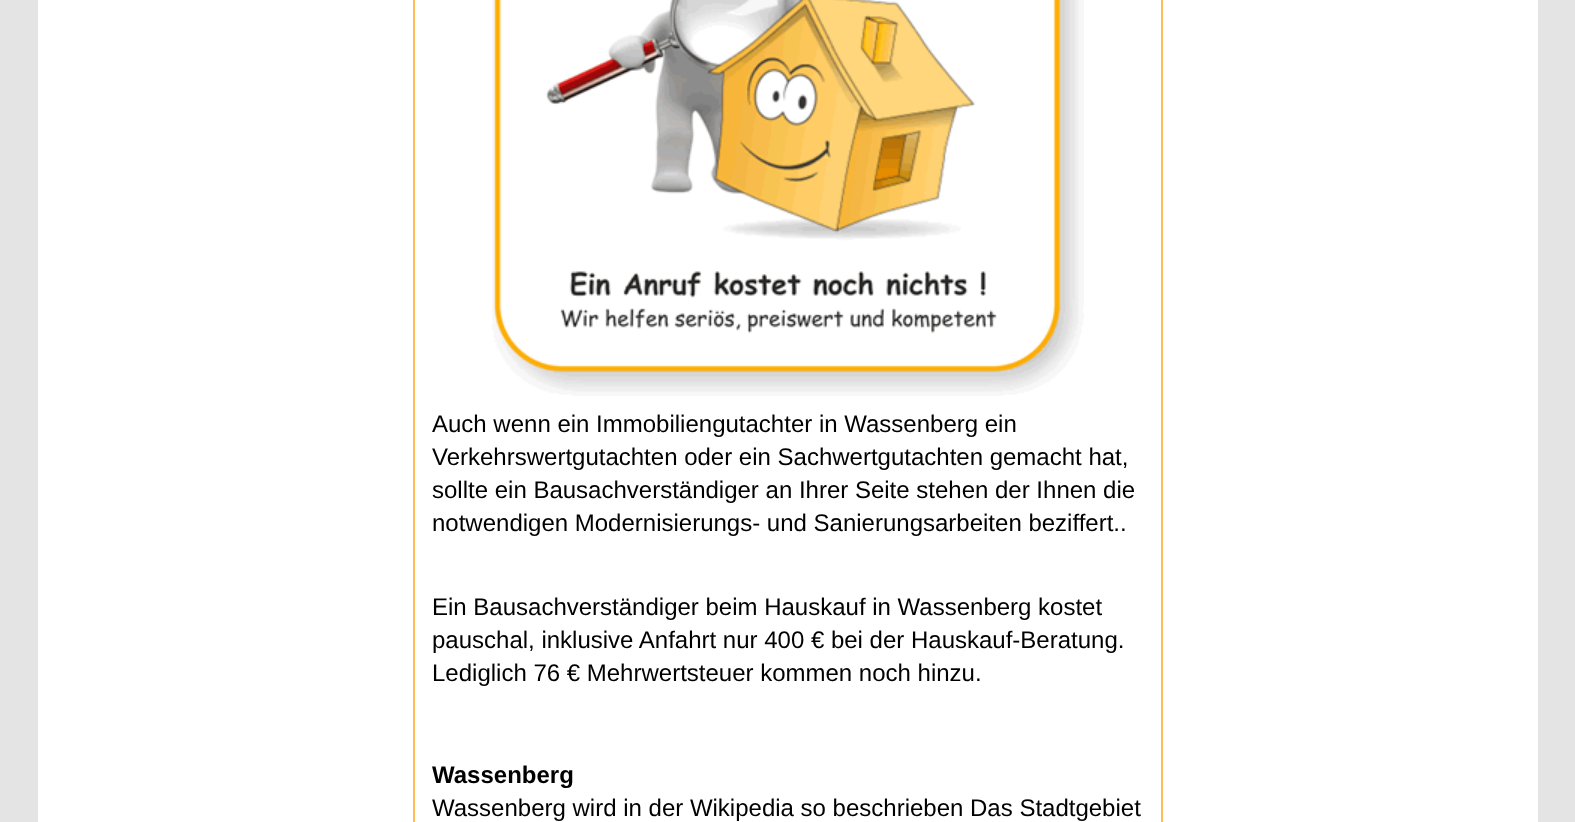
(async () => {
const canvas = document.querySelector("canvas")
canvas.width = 1575
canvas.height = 822
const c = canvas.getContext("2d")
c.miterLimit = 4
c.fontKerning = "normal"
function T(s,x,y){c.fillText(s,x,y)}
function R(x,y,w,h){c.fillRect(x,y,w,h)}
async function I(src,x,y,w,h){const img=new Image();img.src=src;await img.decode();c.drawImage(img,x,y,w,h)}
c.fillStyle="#e4e4e4"
R(0,0,1575,822)
c.fillStyle="#fff"
R(38,0,1500,822)
c.fillStyle="#ffbc57"
R(1161,0,2,822)
R(413,0,2,822)
await I("1.png",491,0,593,396)
c.font="24px Liberation Sans"
c.fillStyle="#000"
T("Auch wenn ein Immobiliengutachter in Wassenberg ein",432,432)
T("Verkehrswertgutachten oder ein Sachwertgutachten gemacht hat,",432,465)
T("sollte ein Bausachverständiger an Ihrer Seite stehen der Ihnen die",432,498)
T("notwendigen Modernisierungs- und Sanierungsarbeiten beziffert..",432,531)
T("Ein Bausachverständiger beim Hauskauf in Wassenberg kostet",432,615)
T("pauschal, inklusive Anfahrt nur 400 € bei der Hauskauf-Beratung.",432,648)
T("Lediglich 76 € Mehrwertsteuer kommen noch hinzu.",432,681)
c.font="bold 24px Liberation Sans"
T("Wassenberg",432,783)
c.font="24px Liberation Sans"
T("Wassenberg wird in der Wikipedia so beschrieben Das Stadtgebiet",432,816)
})()
